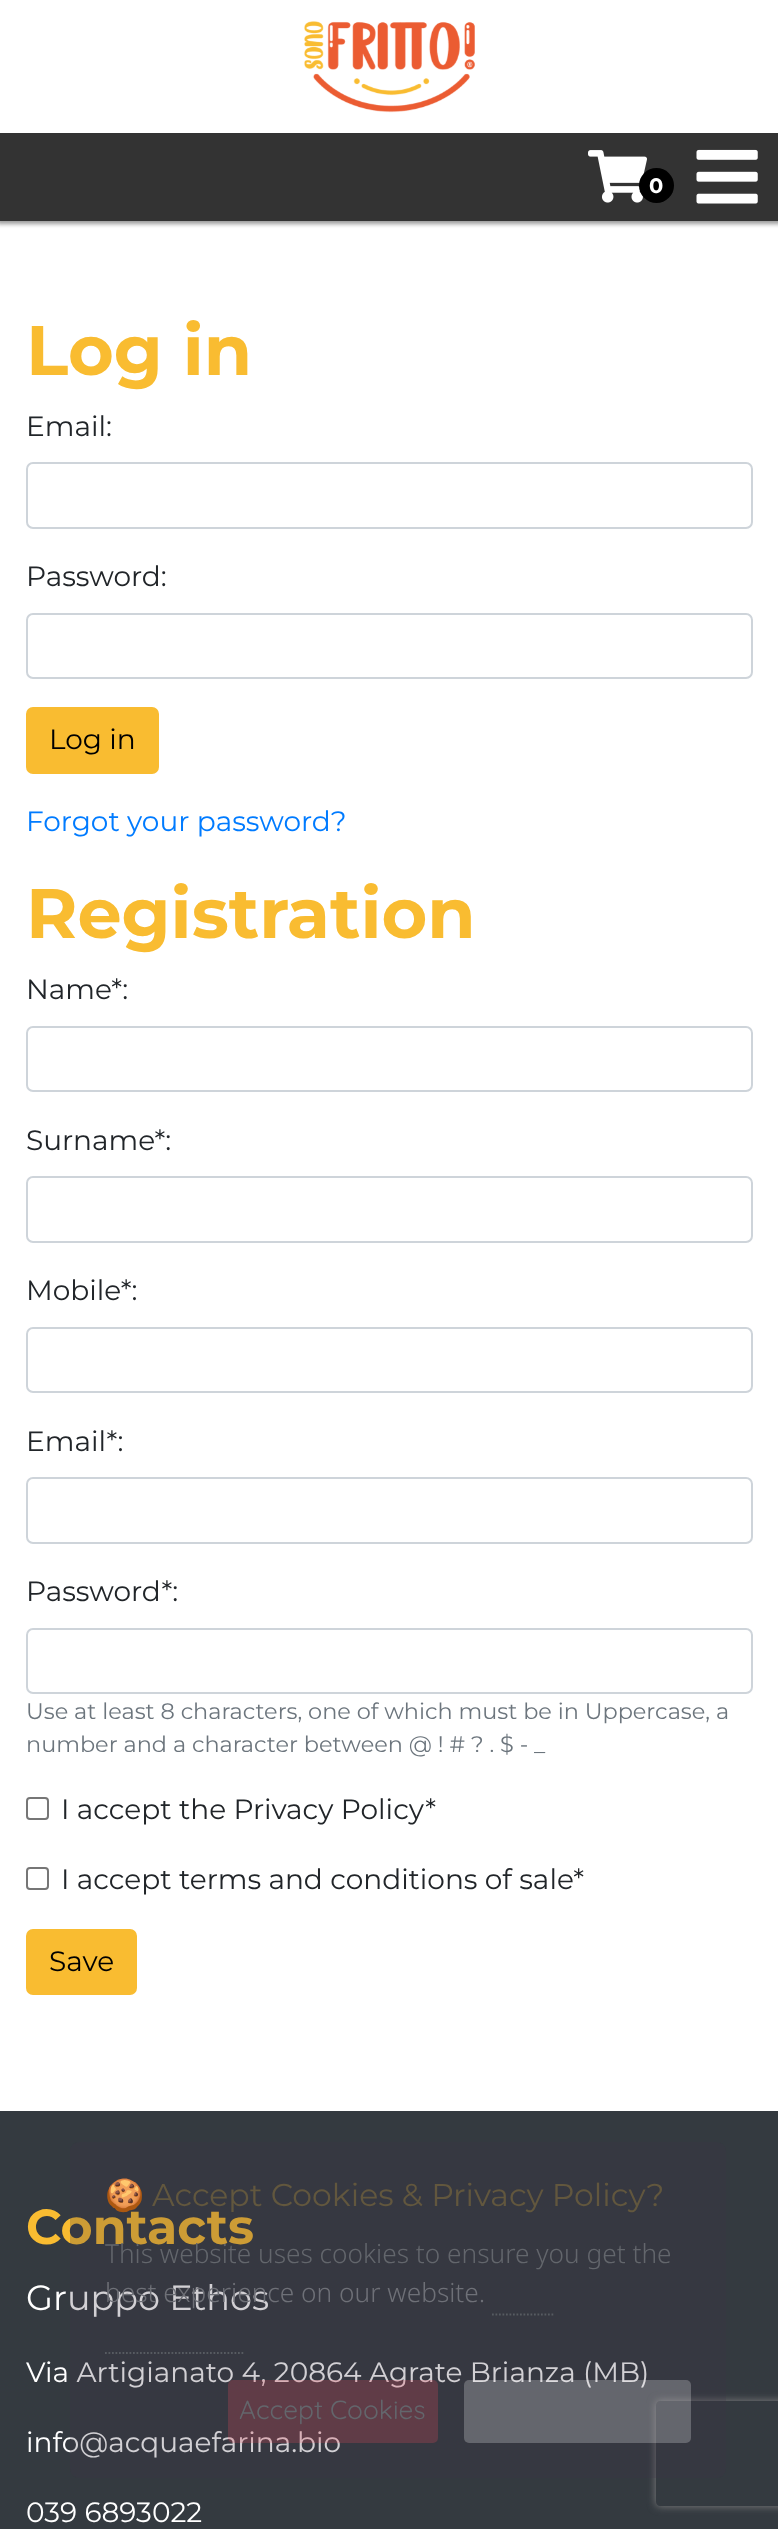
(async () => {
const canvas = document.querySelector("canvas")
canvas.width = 778
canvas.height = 2529
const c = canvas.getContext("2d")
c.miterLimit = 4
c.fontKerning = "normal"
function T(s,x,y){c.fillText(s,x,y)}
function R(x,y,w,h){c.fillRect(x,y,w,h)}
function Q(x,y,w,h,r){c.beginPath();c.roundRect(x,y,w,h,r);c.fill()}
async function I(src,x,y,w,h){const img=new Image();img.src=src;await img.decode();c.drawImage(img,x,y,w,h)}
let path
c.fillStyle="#343a40"
R(0,0,778,2529)
c.fillStyle="#fff"
R(0,221,778,1890)
c.fillStyle="#00000066"
c.filter="blur(2px)"
c.beginPath()
c.rect(-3,-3,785,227)
c.fill()
c.filter="none"
c.fillStyle="#fff"
R(0,0,778,133)
await I("1.png",304,21,171,92)
c.fillStyle="#333"
R(0,133,778,88)
await I("2.png",588,150,59,53)
c.fillStyle="#000"
c.beginPath()
c.arc(656.5,185.5,17.5,0,7)
c.fill()
c.font="bold 21px Montserrat"
c.fillStyle="#fff"
T("0",649,193)
await I("3.png",696,149,62,55)
c.font="bold 70px Montserrat"
c.fillStyle="#f9bc31"
T("Log in",26,375)
c.font="28px Montserrat"
c.fillStyle="#212529"
T("Email:",26,436)
c.beginPath()
c.roundRect(27,463,725,65,6)
c.strokeStyle="#ced4da"
c.lineWidth=2
c.stroke()
T("Password:",26,586)
c.beginPath()
c.roundRect(27,614,725,64,6)
c.stroke()
c.fillStyle="#f9bc31"
c.beginPath()
c.roundRect(27,708,131,65,6)
c.fill()
c.strokeStyle="#f9bc31"
c.stroke()
c.fillStyle="#000"
T("Log in",49,749)
c.fillStyle="#007bff"
T("Forgot your password?",26,831)
c.font="bold 70px Montserrat"
c.fillStyle="#f9bc31"
T("Registration",26,938)
c.font="28px Montserrat"
c.fillStyle="#212529"
T("Name*:",26,999)
c.beginPath()
c.roundRect(27,1027,725,64,6)
c.strokeStyle="#ced4da"
c.stroke()
T("Surname*:",26,1150)
c.beginPath()
c.roundRect(27,1177,725,65,6)
c.stroke()
T("Mobile*:",26,1300)
c.beginPath()
c.roundRect(27,1328,725,64,6)
c.stroke()
T("Email*:",26,1451)
c.beginPath()
c.roundRect(27,1478,725,65,6)
c.stroke()
T("Password*:",26,1601)
c.beginPath()
c.roundRect(27,1629,725,64,6)
c.stroke()
c.font="22.4px Montserrat"
c.fillStyle="#6c757d"
T("Use at least 8 characters, one of which must be in Uppercase, a",26,1719)
T("number and a character between @ ! # ? . $ - _",26,1752)
c.beginPath()
c.roundRect(27,1798,21,21,3)
c.strokeStyle="#767676"
c.stroke()
c.font="28px Montserrat"
c.fillStyle="#212529"
T("I accept the Privacy Policy*",61,1819)
c.beginPath()
c.roundRect(27,1868,21,21,3)
c.stroke()
T("I accept terms and conditions of sale*",61,1889)
c.fillStyle="#f9bc31"
c.beginPath()
c.roundRect(27,1930,109,64,6)
c.fill()
c.strokeStyle="#f9bc31"
c.stroke()
c.fillStyle="#000"
T("Save",49,1971)
c.font="bold 49px Montserrat"
c.fillStyle="#f9bc31"
T("Contacts",26,2244)
c.font="35px Montserrat"
c.fillStyle="#fff"
T("Gruppo Ethos",26,2310)
c.font="28px Montserrat"
T("Via Artigianato 4, 20864 Agrate Brianza (MB)",26,2382)
T("info@acquaefarina.bio",26,2452)
c.save()
path = new Path2D("M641 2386h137v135h-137zm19 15h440c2 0 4 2 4 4v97c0 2-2 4-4 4h-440c-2 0-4-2-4-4v-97c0-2 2-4 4-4z")
c.clip(path,"evenodd")
c.fillStyle="#808080"
c.filter="blur(4.5px)"
c.beginPath()
c.roundRect(656,2401,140,105,4)
c.fill()
c.filter="none"
c.restore()
c.fillStyle="#3b36463b"
Q(70,2142,656,336,9)
c.font="31.5px Noto Color Emoji"
c.fillStyle="#62573e"
T("🍪",105,2206)
c.font="31.5px Montserrat"
T("Accept Cookies & Privacy Policy?",152,2206)
c.font="300 26.25px Noto Sans"
c.fillStyle="#63666c"
T("This website uses cookies to ensure you get the",105,2263)
c.fillStyle="#6e7077"
T("best experience on our website.",105,2302)
path = new Path2D("M492 2314.5h63")
c.strokeStyle="#575b61"
c.lineWidth=1.8
c.setLineDash([1.75,1.75])
c.stroke(path)
path = new Path2D("M105 2353h140")
c.stroke(path)
c.fillStyle="#ee4b5a3b"
Q(228,2380,210,63,5)
c.font="26.25px Quicksand"
c.fillStyle="#63666c"
T("Accept Cookies",239,2419)
c.fillStyle="#ffffff3b"
Q(464,2380,227,63,5)
c.font="28px Montserrat"
c.fillStyle="#fff"
T("039 6893022",26,2522)
})()
